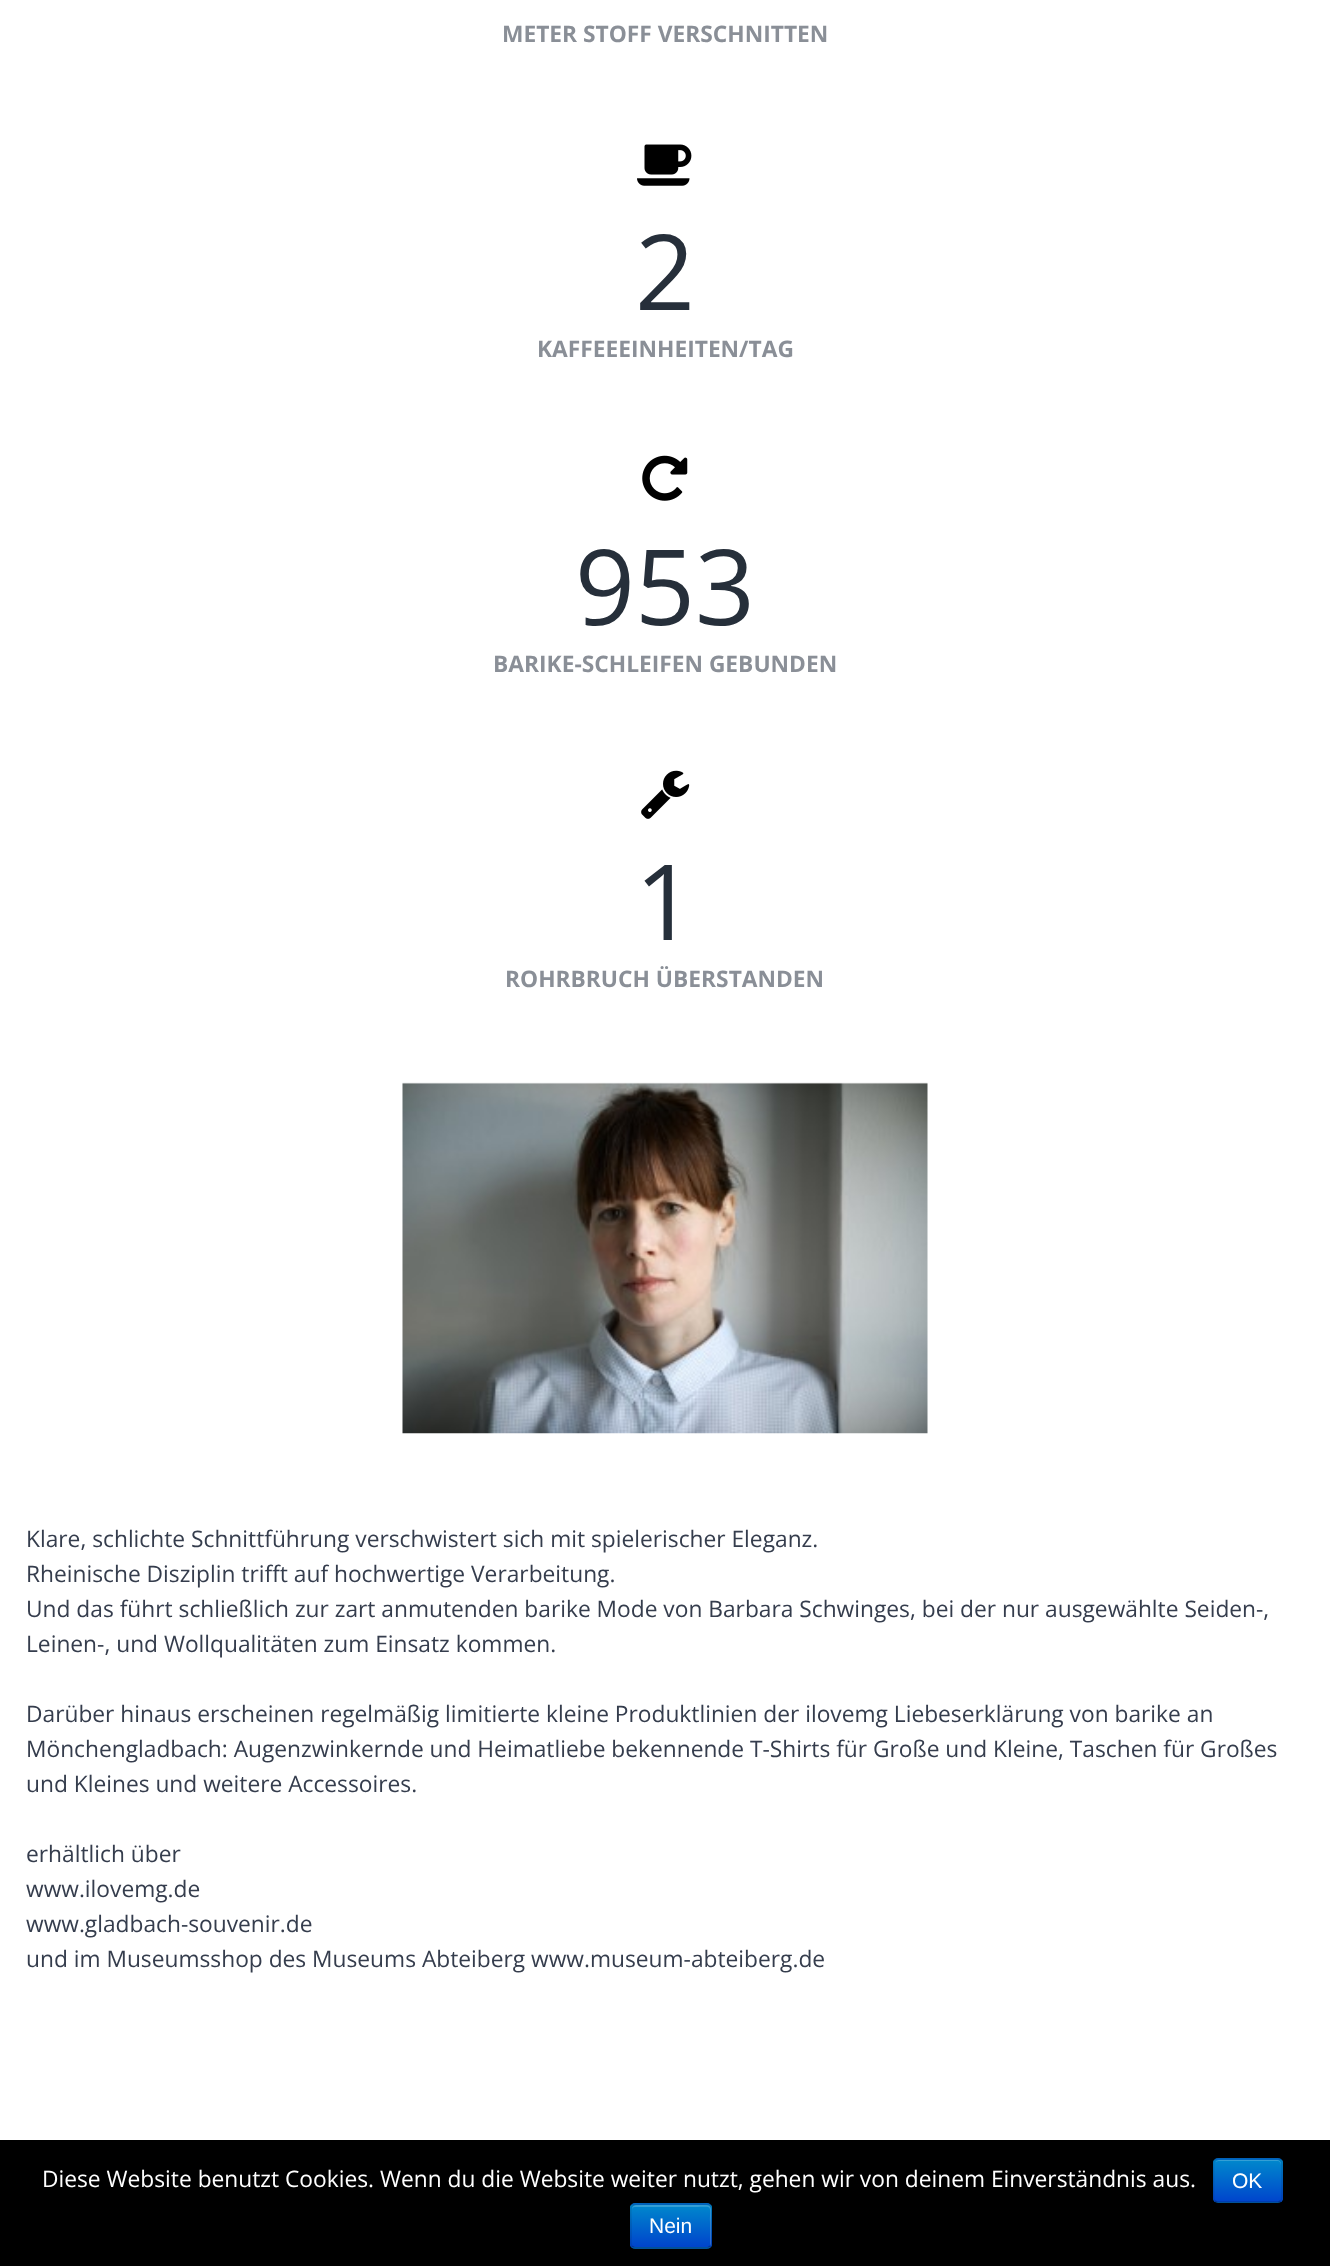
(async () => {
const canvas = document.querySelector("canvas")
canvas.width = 1330
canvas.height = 2266
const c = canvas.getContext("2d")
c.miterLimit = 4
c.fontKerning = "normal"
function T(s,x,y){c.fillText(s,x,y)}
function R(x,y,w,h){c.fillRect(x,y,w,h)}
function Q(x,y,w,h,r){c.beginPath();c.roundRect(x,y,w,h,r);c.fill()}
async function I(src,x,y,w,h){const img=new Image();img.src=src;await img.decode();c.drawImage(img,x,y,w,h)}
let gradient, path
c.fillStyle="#fff"
R(0,0,1330,2266)
c.font="bold 22.75px Open Sans"
c.fillStyle="#8a8f97"
T("METER STOFF VERSCHNITTEN",502,42)
await I("1.png",637,144,55,42)
c.font="105px Open Sans"
c.fillStyle="#262f3a"
T("2",635,310)
c.font="bold 22.75px Open Sans"
c.fillStyle="#8a8f97"
T("KAFFEEEINHEITEN/TAG",537,357)
await I("2.png",642,455,46,46)
c.font="105px Open Sans"
c.fillStyle="#262f3a"
T("953",575,625)
c.font="bold 22.75px Open Sans"
c.fillStyle="#8a8f97"
T("BARIKE-SCHLEIFEN GEBUNDEN",493,672)
await I("3.png",641,770,49,49)
c.font="105px Open Sans"
c.fillStyle="#262f3a"
T("1",635,940)
c.font="bold 22.75px Open Sans"
c.fillStyle="#8a8f97"
T("ROHRBRUCH ÜBERSTANDEN",505,987)
await I("4.png",402,1082,526,352)
c.font="22.75px Open Sans"
c.fillStyle="#353d4d"
T("Klare, schlichte Schnittführung verschwistert sich mit spielerischer Eleganz.",26,1547)
T("Rheinische Disziplin trifft auf hochwertige Verarbeitung.",26,1582)
T("Und das führt schließlich zur zart anmutenden barike Mode von Barbara Schwinges, bei der nur ausgewählte Seiden-,",26,1617)
T("Leinen-, und Wollqualitäten zum Einsatz kommen.",26,1652)
T("Darüber hinaus erscheinen regelmäßig limitierte kleine Produktlinien der ilovemg Liebeserklärung von barike an",26,1722)
T("Mönchengladbach: Augenzwinkernde und Heimatliebe bekennende T-Shirts für Große und Kleine, Taschen für Großes",26,1757)
T("und Kleines und weitere Accessoires.",26,1792)
T("erhältlich über",26,1862)
T("www.ilovemg.de",26,1897)
T("www.gladbach-souvenir.de",26,1932)
T("und im Museumsshop des Museums Abteiberg www.museum-abteiberg.de",26,1967)
c.fillStyle="#000"
R(0,2140,1330,126)
c.fillStyle="#fff"
T("Diese Website benutzt Cookies. Wenn du die Website weiter nutzt, gehen wir von deinem Einverständnis aus.",42,2187)
c.fillStyle="#006dcc"
Q(1213,2158,70,45,5)
c.save()
c.beginPath()
c.roundRect(1213,2158,70,45,5)
c.clip()
gradient = c.createLinearGradient(1248,2160,1248,2202)
gradient.addColorStop(0,"#08c")
gradient.addColorStop(1,"#04c")
c.fillStyle = gradient
R(1213,2160,70,42)
c.restore()
c.fillStyle="#ffffff33"
path = new Path2D("M1218 2161h60c1 0 3 2 3 4v-1c0-2-2-4-4-4h-58c-1 0-3 1-3 2z")
c.fill(path)
path = new Path2D("M1280.5 2201l-2.5 1.5h-60.5l-2.5-1.5")
c.strokeStyle="#00000040"
c.lineWidth=1.8
c.stroke(path)
path = new Path2D("M1215 2201c-1-.5-1.5-2-1.5-3v-35c0-1 .5-2.5 1.5-3c.5-1 2-1.5 3-1.5h59.5c1 0 2.5 .5 3 1.5c1 .5 1.5 2 1.5 3v35c0 1-.5 2.5-1.5 3")
c.strokeStyle="#0000001a"
c.stroke(path)
c.font="21px Liberation Sans"
c.fillStyle="#fff"
T("OK",1232,2188)
c.fillStyle="#006dcc"
Q(630,2203,82,46,5)
c.save()
c.beginPath()
c.roundRect(630,2203,82,46,5)
c.clip()
gradient = c.createLinearGradient(671,2205,671,2247)
gradient.addColorStop(0,"#08c")
gradient.addColorStop(1,"#04c")
c.fillStyle = gradient
R(630,2205,82,42)
c.restore()
c.fillStyle="#ffffff33"
path = new Path2D("M635 2207h60c18 0 15-3 15 15v24c1-1 1-2 1-3v-34c0-2-2-4-4-4h-71c-2 0-4 2-4 4v1c0-2 1-3 3-3z")
c.fill(path)
path = new Path2D("M710 2246.5l-2.5 1.5h-72.5l-3-1.5")
c.strokeStyle="#00000040"
c.stroke(path)
path = new Path2D("M632 2246.5c-2-2-1-6.5-1-9v-11.5c0-23-4.5-22 16-22h48c21 0 16.5-1 16.5 22v11.5c0 2.5 1 7-1.5 9")
c.strokeStyle="#0000001a"
c.stroke(path)
c.fillStyle="#fff"
T("Nein",649,2233)
})()
